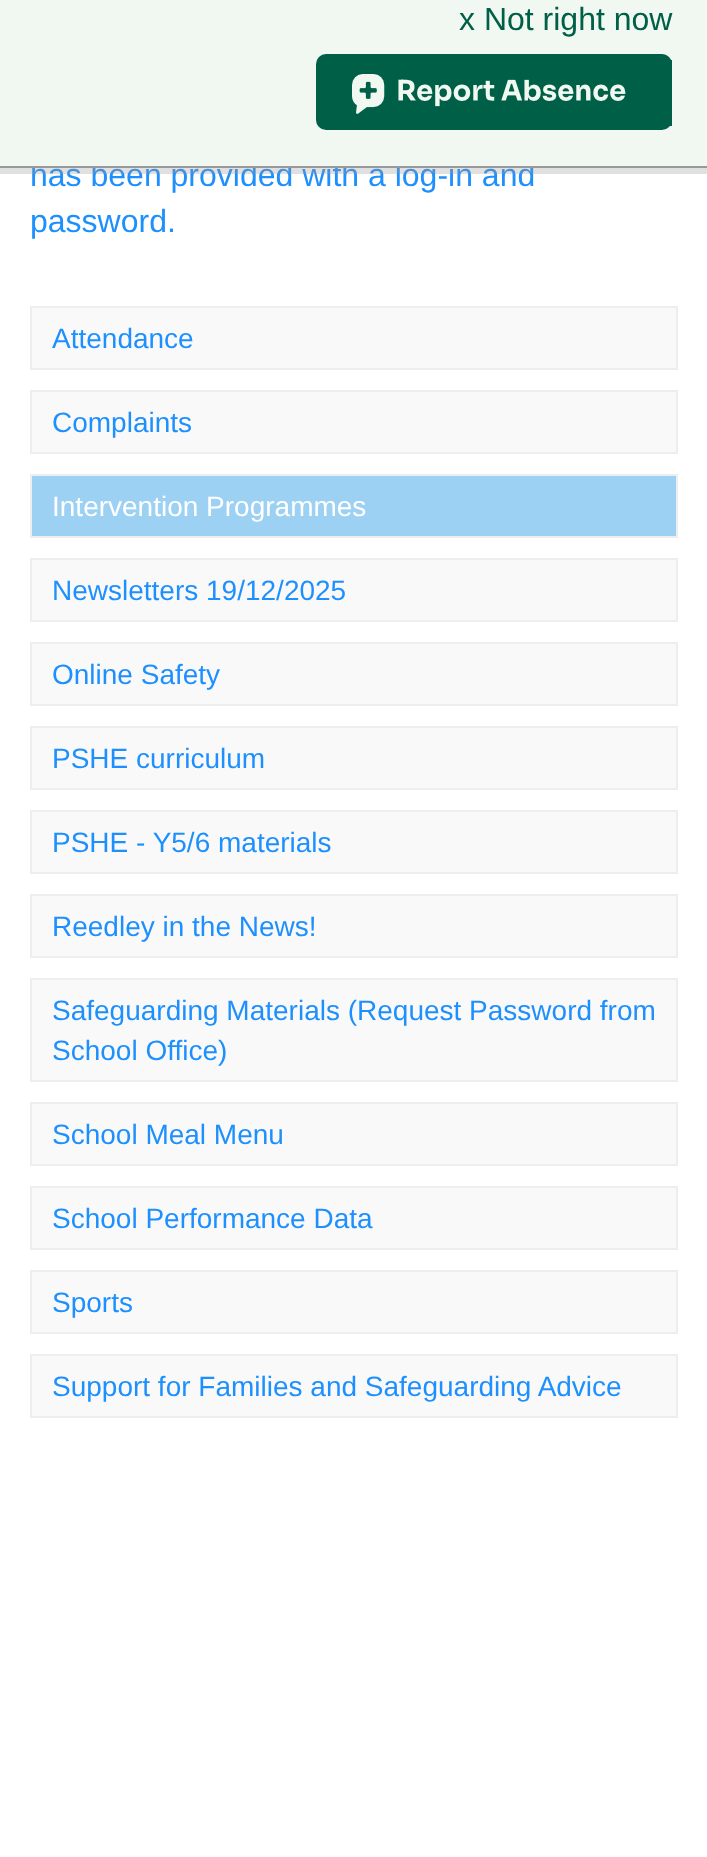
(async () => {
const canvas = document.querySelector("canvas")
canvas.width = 707
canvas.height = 1857
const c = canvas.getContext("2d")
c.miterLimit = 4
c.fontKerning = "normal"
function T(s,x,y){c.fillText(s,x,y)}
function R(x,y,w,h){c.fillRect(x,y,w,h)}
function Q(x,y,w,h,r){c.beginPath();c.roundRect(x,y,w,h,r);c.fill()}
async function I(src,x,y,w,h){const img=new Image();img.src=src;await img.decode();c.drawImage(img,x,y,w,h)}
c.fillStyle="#fff"
R(0,0,707,1857)
c.font="32px Liberation Sans"
c.fillStyle="#1e90fe"
T("has been provided with a log-in and",30,186)
c.fillStyle="#9999994d"
R(0,168,707,6)
c.fillStyle="#f0f8f1"
R(0,0,707,166)
c.fillStyle="#999"
R(0,166,707,2)
c.fillStyle="#006047"
T("x Not right now",459,30)
Q(316,54,356,76,10)
R(670,60,2,66)
await I("1.png",352,74,274,40)
c.fillStyle="#1e90fe"
T("password.",30,232)
c.fillStyle="#f9f9f9"
c.beginPath()
c.rect(31,307,646,62)
c.fill()
c.strokeStyle="#eee"
c.lineWidth=2
c.stroke()
c.font="28px Liberation Sans"
c.fillStyle="#1e90fe"
T("Attendance",52,348)
c.fillStyle="#f9f9f9"
c.beginPath()
c.rect(31,391,646,62)
c.fill()
c.stroke()
c.fillStyle="#1e90fe"
T("Complaints",52,432)
c.fillStyle="#9dd1f4"
c.beginPath()
c.rect(31,475,646,62)
c.fill()
c.stroke()
c.fillStyle="#fff"
T("Intervention Programmes",52,516)
c.fillStyle="#f9f9f9"
c.beginPath()
c.rect(31,559,646,62)
c.fill()
c.stroke()
c.fillStyle="#1e90fe"
T("Newsletters 19/12/2025",52,600)
c.fillStyle="#f9f9f9"
c.beginPath()
c.rect(31,643,646,62)
c.fill()
c.stroke()
c.fillStyle="#1e90fe"
T("Online Safety",52,684)
c.fillStyle="#f9f9f9"
c.beginPath()
c.rect(31,727,646,62)
c.fill()
c.stroke()
c.fillStyle="#1e90fe"
T("PSHE curriculum",52,768)
c.fillStyle="#f9f9f9"
c.beginPath()
c.rect(31,811,646,62)
c.fill()
c.stroke()
c.fillStyle="#1e90fe"
T("PSHE - Y5/6 materials",52,852)
c.fillStyle="#f9f9f9"
c.beginPath()
c.rect(31,895,646,62)
c.fill()
c.stroke()
c.fillStyle="#1e90fe"
T("Reedley in the News!",52,936)
c.fillStyle="#f9f9f9"
c.beginPath()
c.rect(31,979,646,102)
c.fill()
c.stroke()
c.fillStyle="#1e90fe"
T("Safeguarding Materials (Request Password from",52,1020)
T("School Office)",52,1060)
c.fillStyle="#f9f9f9"
c.beginPath()
c.rect(31,1103,646,62)
c.fill()
c.stroke()
c.fillStyle="#1e90fe"
T("School Meal Menu",52,1144)
c.fillStyle="#f9f9f9"
c.beginPath()
c.rect(31,1187,646,62)
c.fill()
c.stroke()
c.fillStyle="#1e90fe"
T("School Performance Data",52,1228)
c.fillStyle="#f9f9f9"
c.beginPath()
c.rect(31,1271,646,62)
c.fill()
c.stroke()
c.fillStyle="#1e90fe"
T("Sports",52,1312)
c.fillStyle="#f9f9f9"
c.beginPath()
c.rect(31,1355,646,62)
c.fill()
c.stroke()
c.fillStyle="#1e90fe"
T("Support for Families and Safeguarding Advice",52,1396)
})()
